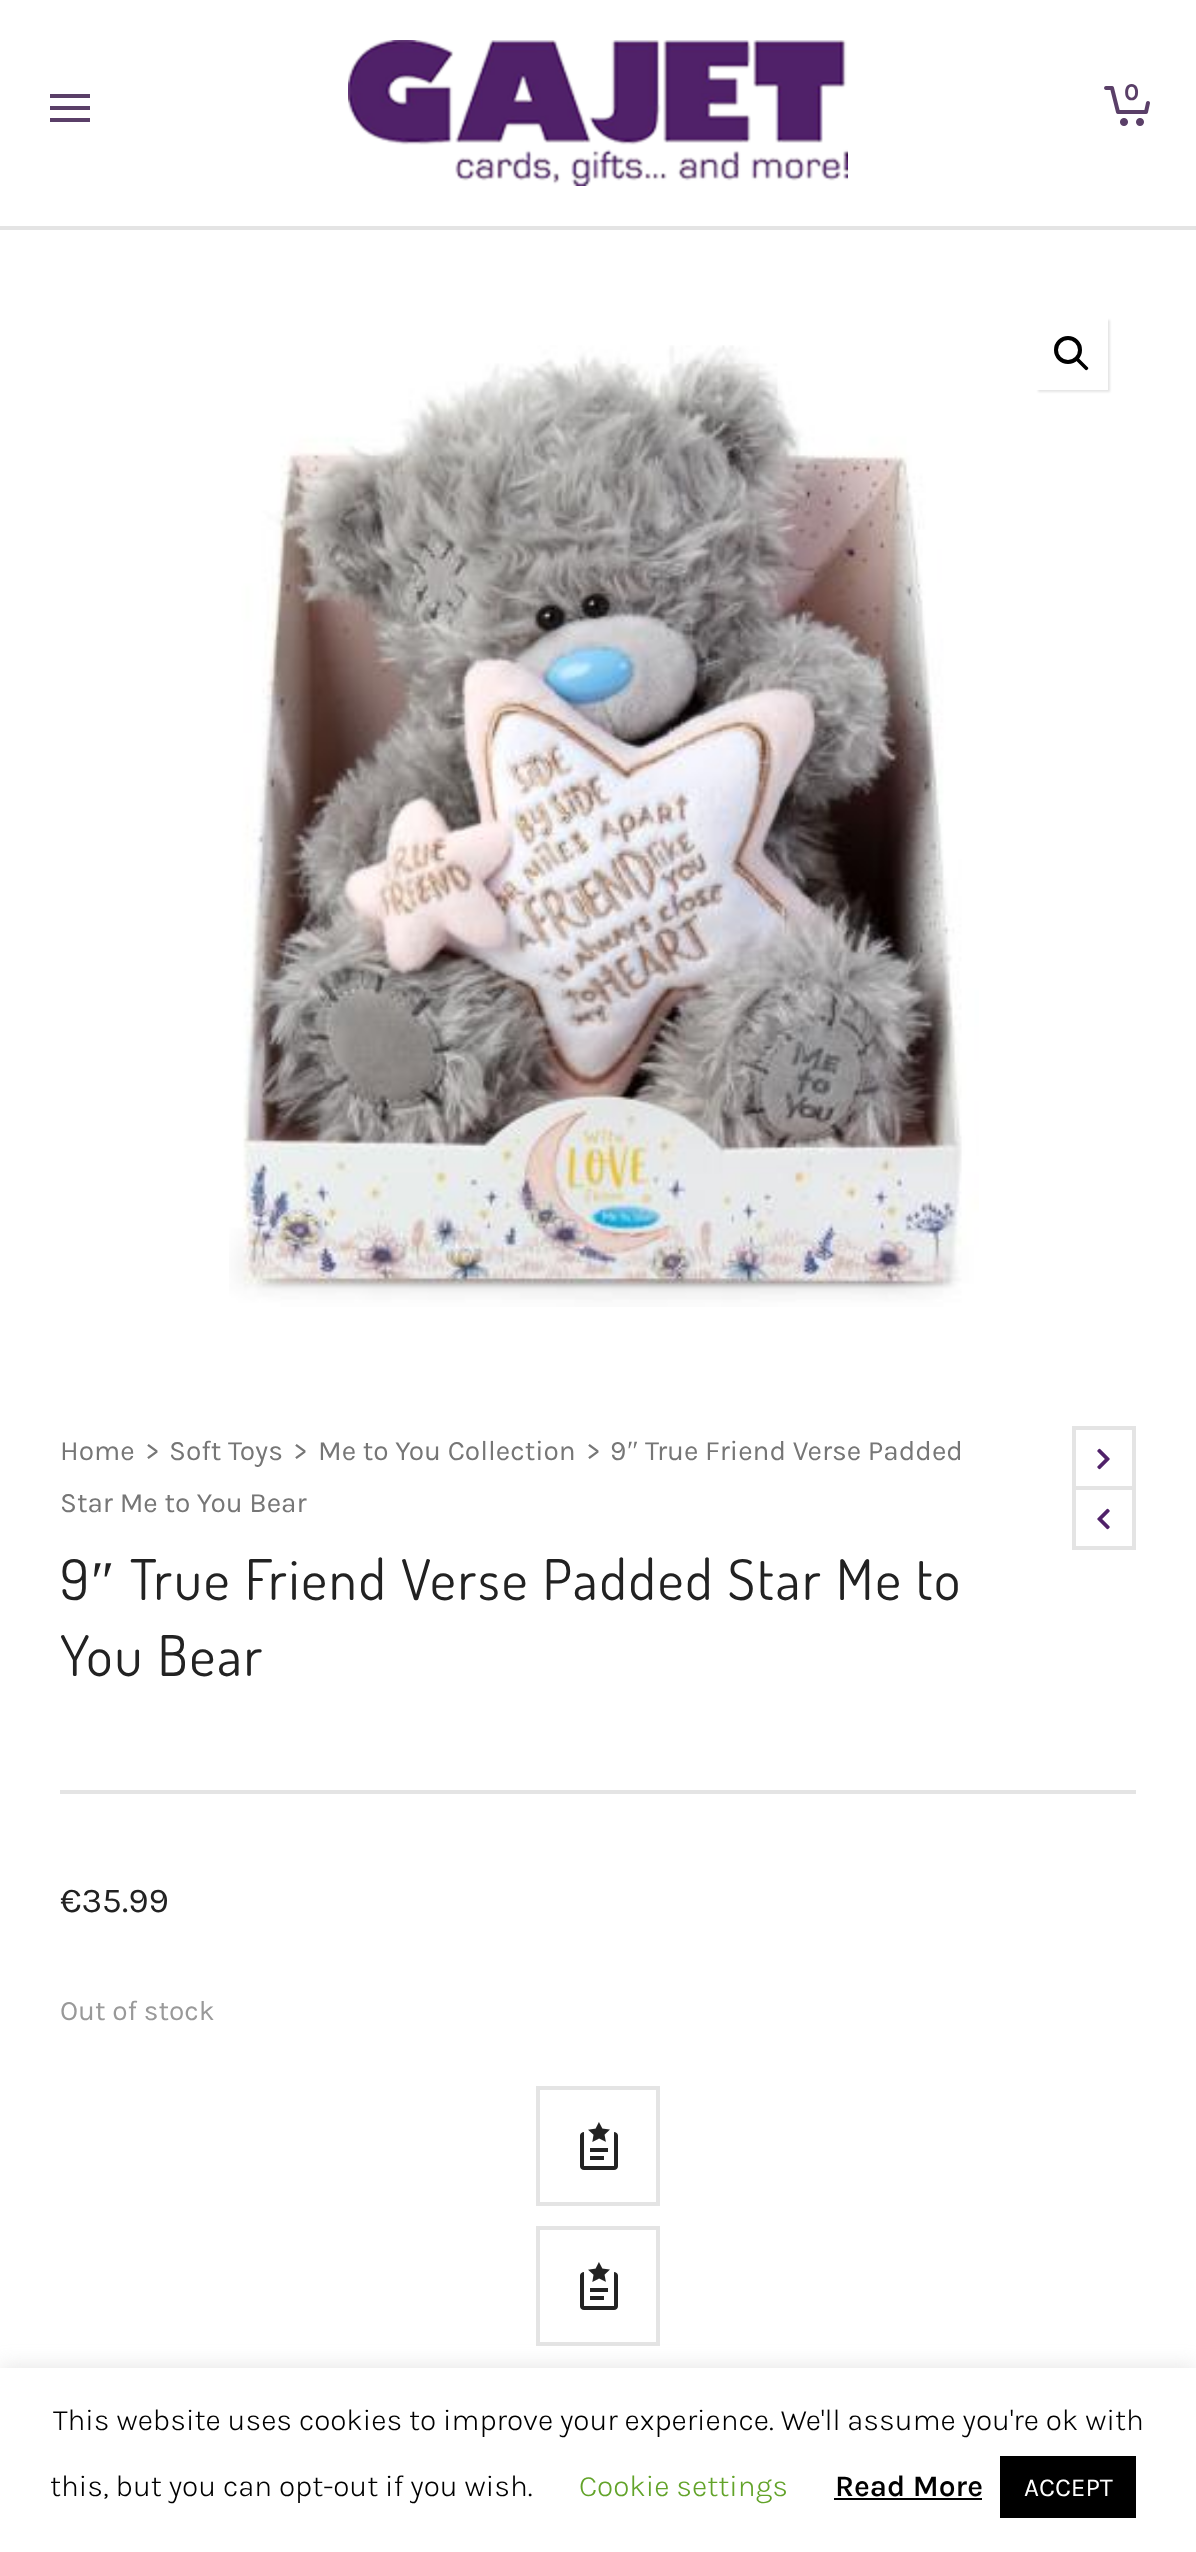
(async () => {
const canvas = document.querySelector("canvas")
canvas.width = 1196
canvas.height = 2552
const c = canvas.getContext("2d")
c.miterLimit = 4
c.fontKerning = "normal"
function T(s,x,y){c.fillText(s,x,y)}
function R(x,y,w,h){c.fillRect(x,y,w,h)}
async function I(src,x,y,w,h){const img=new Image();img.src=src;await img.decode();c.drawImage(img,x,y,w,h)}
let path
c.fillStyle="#fff"
R(0,0,1196,2552)
c.fillStyle="#e4e4e4"
R(0,226,1196,4)
c.fillStyle="#5a3f68"
R(50,106,40,4)
R(50,94,40,4)
R(50,118,40,4)
await I("1.png",348,40,500,146)
await I("2.png",1104,86,46,40)
c.font="bold 24px Karla"
T("0",1124,100)
await I("3.png",229,345,750,962)
c.save()
path = new Path2D("M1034 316h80v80h-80zm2 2h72v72h-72z")
c.clip(path,"evenodd")
c.fillStyle="#0000001a"
c.filter="blur(1px)"
c.beginPath()
c.rect(1038,320,72,72)
c.fill()
c.filter="none"
c.restore()
c.beginPath()
c.arc(1068,350,12,0,7)
c.strokeStyle="#000"
c.lineWidth=4
c.stroke()
c.fillStyle="#000"
path = new Path2D("M1076.5 358.5c.5-1 2-1 2.5 0l8.5 8.5c1 .5 1 2 0 2.5c-.5 1-2 1-2.5 0l-8.5-8.5c-1-.5-1-2 0-2.5z")
c.fill(path)
c.fillStyle="#e4e4e4"
R(60,1790,1076,4)
c.font="28px Karla"
c.fillStyle="#767676"
T("Home",60,1460)
T(">",145,1460)
T("Soft Toys",169,1460)
T(">",293,1460)
T("Me to You Collection",318,1460)
T(">",586,1460)
T("9",610,1460)
c.font="28px Liberation Serif"
T("″",627,1460)
c.font="28px Karla"
T("True Friend Verse Padded",645,1460)
T("Star Me to You Bear",60,1512)
c.strokeStyle="#e4e4e4"
c.strokeRect(1074,1428,60,60)
await I("4.png",1097,1448,13,22)
c.strokeRect(1074,1488,60,60)
await I("5.png",1097,1508,13,22)
c.letterSpacing="2px"
c.font="56px Dosis"
c.fillStyle="#222"
T("9",60,1600)
c.font="56px Liberation Serif"
T("″",91,1600)
c.font="56px Dosis"
T("True Friend Verse Padded Star Me to",130,1600)
T("You Bear",60,1676)
c.letterSpacing="0px"
c.font="35px Karla"
T("€35.99",60,1912)
c.font="28px Karla"
c.fillStyle="#999"
T("Out of stock",60,2020)
c.strokeRect(538,2088,120,116)
await I("6.png",580,2122,38,48)
c.strokeRect(538,2228,120,116)
await I("6.png",580,2262,38,48)
c.fillStyle="#acabab4d"
c.filter="blur(10px)"
c.beginPath()
c.rect(0,2366,1196,184)
c.fill()
c.filter="none"
c.fillStyle="#fff"
R(0,2368,1196,184)
c.font="300 30px Karla"
c.fillStyle="#000"
T("This website uses cookies to improve your experience. We'll assume you're ok with",53,2430)
T("this, but you can opt-out if you wish.",50,2496)
c.fillStyle="#62a329"
T("Cookie settings",579,2496)
c.font="600 30px Karla"
c.fillStyle="#000"
T("Read More",835,2496)
R(834,2498,148,2)
R(1000,2456,136,62)
c.font="26px Karla"
c.fillStyle="#fff"
T("ACCEPT",1024,2496)
})()
